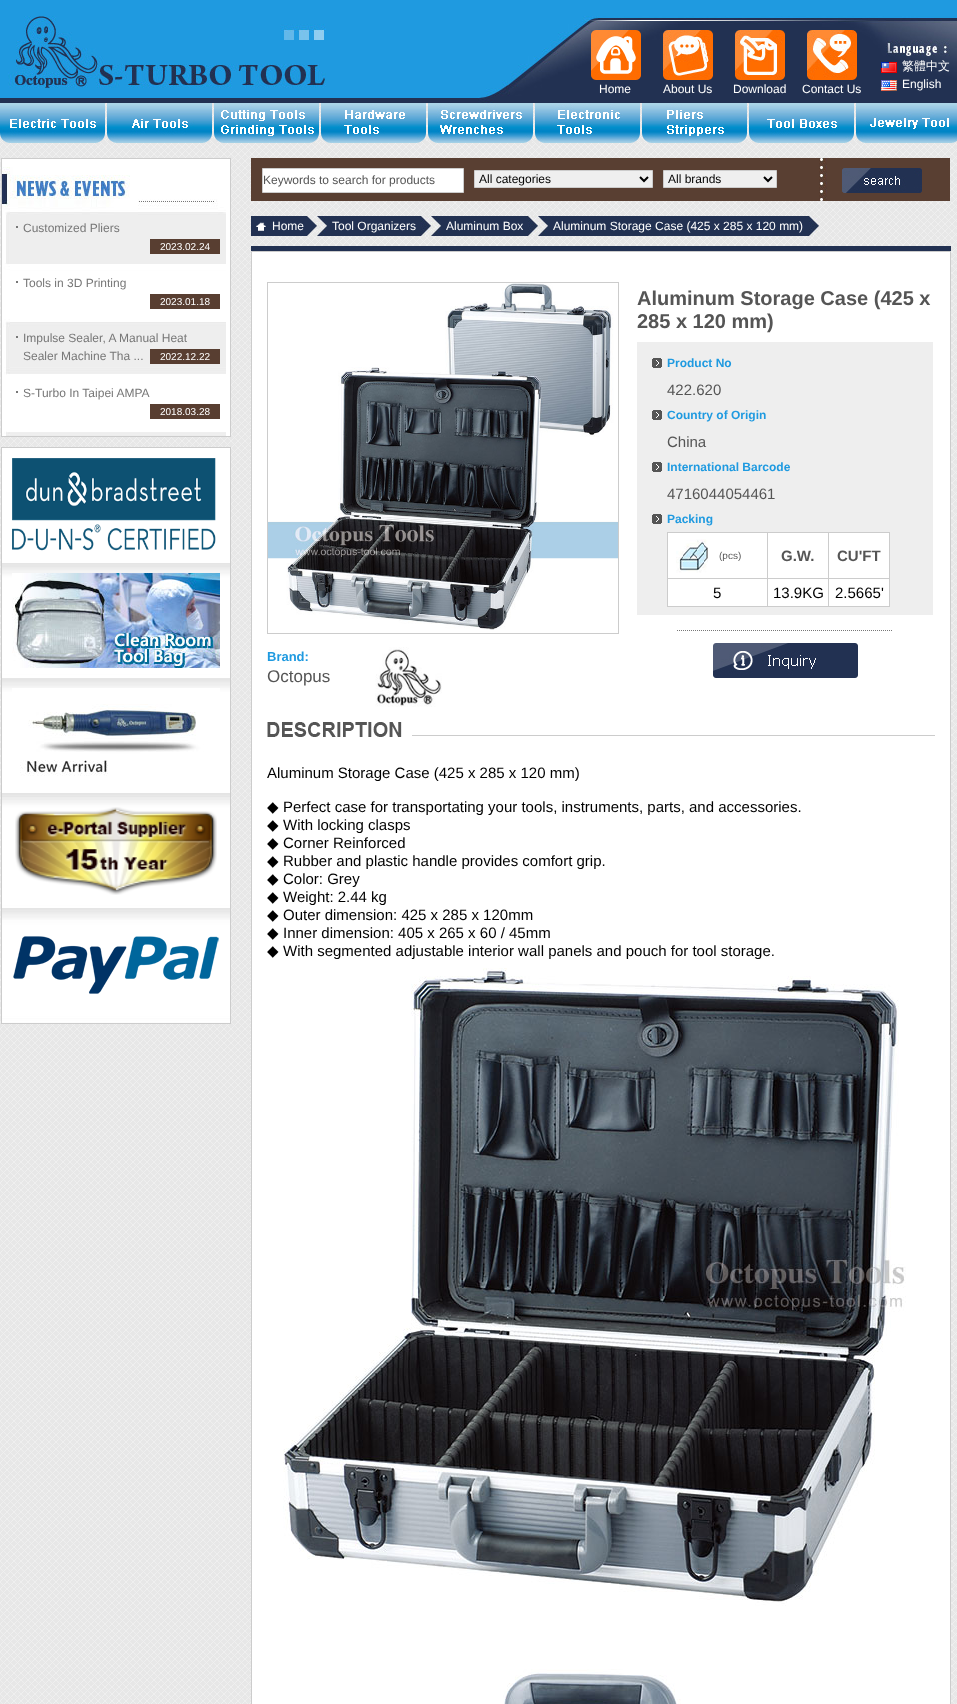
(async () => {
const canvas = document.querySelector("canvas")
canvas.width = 957
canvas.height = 1704
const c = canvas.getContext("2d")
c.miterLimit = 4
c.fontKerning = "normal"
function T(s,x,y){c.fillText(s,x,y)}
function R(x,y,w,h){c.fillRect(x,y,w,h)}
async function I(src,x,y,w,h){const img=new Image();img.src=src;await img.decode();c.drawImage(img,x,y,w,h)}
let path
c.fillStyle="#fff"
R(0,0,957,1704)
await I("1.png",0,103,957,1601)
await I("2.png",0,0,957,103)
await I("3.png",8,16,318,72)
await I("4.png",478,16,479,87)
await I("5.png",591,30,50,50)
c.font="12px Liberation Sans"
T("Home",599,93)
await I("6.png",663,30,50,50)
T("About Us",663,93)
await I("7.png",735,30,50,50)
T("Download",733,93)
await I("8.png",807,30,50,50)
T("Contact Us",802,93)
await I("9.png",881,62,16,11)
c.font="500 12px WenQuanYi Zen Hei"
T("繁體中文",902,70)
await I("10.png",881,80,16,11)
c.font="12px Liberation Sans"
T("English",902,88)
await I("11.png",0,103,105,40)
await I("12.png",107,103,105,40)
await I("13.png",214,103,105,40)
await I("14.png",321,103,105,40)
await I("15.png",428,103,105,40)
await I("16.png",535,103,105,40)
await I("17.png",642,103,105,40)
await I("18.png",749,103,105,40)
await I("19.png",856,103,101,40)
R(2,159,228,277)
await I("20.png",2,167,224,269)
c.strokeStyle="#ccc"
c.strokeRect(1.5,158.5,229,278)
c.fillStyle="#777"
R(16,226,2,2)
T("Customized Pliers",23,232)
c.fillStyle="#583e31"
R(150,239,70,15)
c.font="10px Liberation Sans"
c.fillStyle="#fff"
T("2023.02.24",160,250)
c.fillStyle="#777"
R(16,281,2,2)
c.font="12px Liberation Sans"
T("Tools in 3D Printing",23,287)
c.fillStyle="#583e31"
R(150,294,70,15)
c.font="10px Liberation Sans"
c.fillStyle="#fff"
T("2023.01.18",160,305)
c.fillStyle="#777"
R(16,336,2,2)
c.font="12px Liberation Sans"
T("Impulse Sealer, A Manual Heat",23,342)
T("Sealer Machine Tha ...",23,360)
c.fillStyle="#583e31"
R(150,349,70,15)
c.font="10px Liberation Sans"
c.fillStyle="#fff"
T("2022.12.22",160,360)
c.fillStyle="#777"
R(16,391,2,2)
c.font="12px Liberation Sans"
T("S-Turbo In Taipei AMPA",23,397)
c.fillStyle="#583e31"
R(150,404,70,15)
c.font="10px Liberation Sans"
c.fillStyle="#fff"
T("2018.03.28",160,415)
R(2,448,228,115)
await I("21.png",2,563,228,460)
c.strokeRect(1.5,447.5,229,576)
await I("22.png",12,458,204,93)
await I("23.png",12,573,208,95)
await I("24.png",12,688,208,88)
await I("25.png",15,807,202,88)
await I("26.png",13,936,206,58)
await I("27.png",251,158,699,43)
c.beginPath()
c.rect(262.5,168.5,201,24)
c.fill()
c.stroke()
c.font="12px Liberation Sans"
c.fillStyle="#555"
T("Keywords to search for products",263,184)
c.fillStyle="#efefef"
c.beginPath()
c.rect(474.5,170.5,178,17)
c.fill()
c.stroke()
path = new Path2D("M640 177l4 4l4-4")
c.strokeStyle="#000"
c.lineWidth=2
c.stroke(path)
c.fillStyle="#000"
T("All categories",479,183)
c.fillStyle="#efefef"
c.beginPath()
c.rect(663.5,170.5,113,17)
c.fill()
c.strokeStyle="#ccc"
c.lineWidth=1
c.stroke()
path = new Path2D("M764 177l4 4l4-4")
c.strokeStyle="#000"
c.lineWidth=2
c.stroke(path)
c.fillStyle="#000"
T("All brands",668,183)
await I("28.png",842,168,80,25)
c.fillStyle="#223152"
R(251,246,700,5)
await I("29.png",251,216,66,20)
c.fillStyle="#fff"
T("Home",272,230)
c.fillStyle="#223152"
R(327,216,94,20)
await I("30.png",317,216,10,20)
await I("31.png",421,216,10,20)
c.fillStyle="#fff"
T("Tool Organizers",332,230)
c.fillStyle="#223152"
R(441,216,87,20)
await I("30.png",431,216,10,20)
await I("31.png",528,216,10,20)
c.fillStyle="#fff"
T("Aluminum Box",446,230)
c.fillStyle="#223152"
R(548,216,261,20)
await I("30.png",538,216,10,20)
await I("31.png",809,216,10,20)
c.fillStyle="#fff"
T("Aluminum Storage Case (425 x 285 x 120 mm)",553,230)
c.beginPath()
c.rect(251.5,251.5,699,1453)
c.fill()
c.strokeStyle="#ccc"
c.lineWidth=1
c.stroke()
c.font="bold 20px Liberation Sans"
c.fillStyle="#555"
T("Aluminum Storage Case (425 x",637,305)
T("285 x 120 mm)",637,328)
c.fillStyle="#eee"
R(637,342,296,273)
await I("32.png",652,358,10,10)
c.font="bold 12px Liberation Sans"
c.fillStyle="#1f9ae0"
T("Product No",667,367)
c.font="15px Liberation Sans"
c.fillStyle="#555"
T("422.620",667,395)
await I("32.png",652,410,10,10)
c.font="bold 12px Liberation Sans"
c.fillStyle="#1f9ae0"
T("Country of Origin",667,419)
c.font="15px Liberation Sans"
c.fillStyle="#555"
T("China",667,447)
await I("32.png",652,462,10,10)
c.font="bold 12px Liberation Sans"
c.fillStyle="#1f9ae0"
T("International Barcode",667,471)
c.font="15px Liberation Sans"
c.fillStyle="#555"
T("4716044054461",667,499)
await I("32.png",652,514,10,10)
c.font="bold 12px Liberation Sans"
c.fillStyle="#1f9ae0"
T("Packing",667,523)
c.fillStyle="#fff"
R(668,533,221,73)
c.fillStyle="#ccc"
R(667,532,223,1)
R(889,532,1,75)
R(667,606,223,1)
R(667,532,1,75)
await I("33.png",676,539,32,34)
c.font="10px Liberation Sans"
c.fillStyle="#555"
T("(pcs)",719,559)
c.fillStyle="#ccc"
R(828,578,62,1)
R(828,578,1,29)
R(767,578,62,1)
R(767,578,1,29)
R(667,578,101,1)
R(767,532,1,47)
c.font="bold 15px Liberation Sans"
c.fillStyle="#555"
T("G.W.",781,561)
c.fillStyle="#ccc"
R(828,532,1,47)
c.fillStyle="#555"
T("CU'FT",837,561)
c.font="15px Liberation Sans"
c.fillStyle="#000"
T("5",713,598)
T("13.9KG",773,598)
T("2.5665'",835,598)
await I("34.png",677,630,215,1)
await I("35.png",713,643,145,35)
c.strokeRect(267.5,282.5,351,351)
await I("36.png",268,283,350,347)
c.font="bold 13px Liberation Sans"
c.fillStyle="#1f9ae0"
T("Brand:",267,661)
await I("37.png",375,647,67,60)
c.font="17px Liberation Sans"
c.fillStyle="#555"
T("Octopus",267,682)
c.fillStyle="#ccc"
R(412,735,523,1)
await I("38.png",267,722,145,15)
c.font="15px Liberation Sans"
c.fillStyle="#000"
T("Aluminum Storage Case (425 x 285 x 120 mm)",267,778)
c.font="15px DejaVu Sans"
T("◆",267,812)
c.font="15px Liberation Sans"
T("Perfect case for transportating your tools, instruments, parts, and accessories.",283,812)
c.font="15px DejaVu Sans"
T("◆",267,830)
c.font="15px Liberation Sans"
T("With locking clasps",283,830)
c.font="15px DejaVu Sans"
T("◆",267,848)
c.font="15px Liberation Sans"
T("Corner Reinforced",283,848)
c.font="15px DejaVu Sans"
T("◆",267,866)
c.font="15px Liberation Sans"
T("Rubber and plastic handle provides comfort grip.",283,866)
c.font="15px DejaVu Sans"
T("◆",267,884)
c.font="15px Liberation Sans"
T("Color: Grey",283,884)
c.font="15px DejaVu Sans"
T("◆",267,902)
c.font="15px Liberation Sans"
T("Weight: 2.44 kg",283,902)
c.font="15px DejaVu Sans"
T("◆",267,920)
c.font="15px Liberation Sans"
T("Outer dimension: 425 x 285 x 120mm",283,920)
c.font="15px DejaVu Sans"
T("◆",267,938)
c.font="15px Liberation Sans"
T("Inner dimension: 405 x 265 x 60 / 45mm",283,938)
c.font="15px DejaVu Sans"
T("◆",267,956)
c.font="15px Liberation Sans"
T("With segmented adjustable interior wall panels and pouch for tool storage.",283,956)
await I("39.png",283,968,623,638)
await I("40.png",503,1669,178,35)
})()
